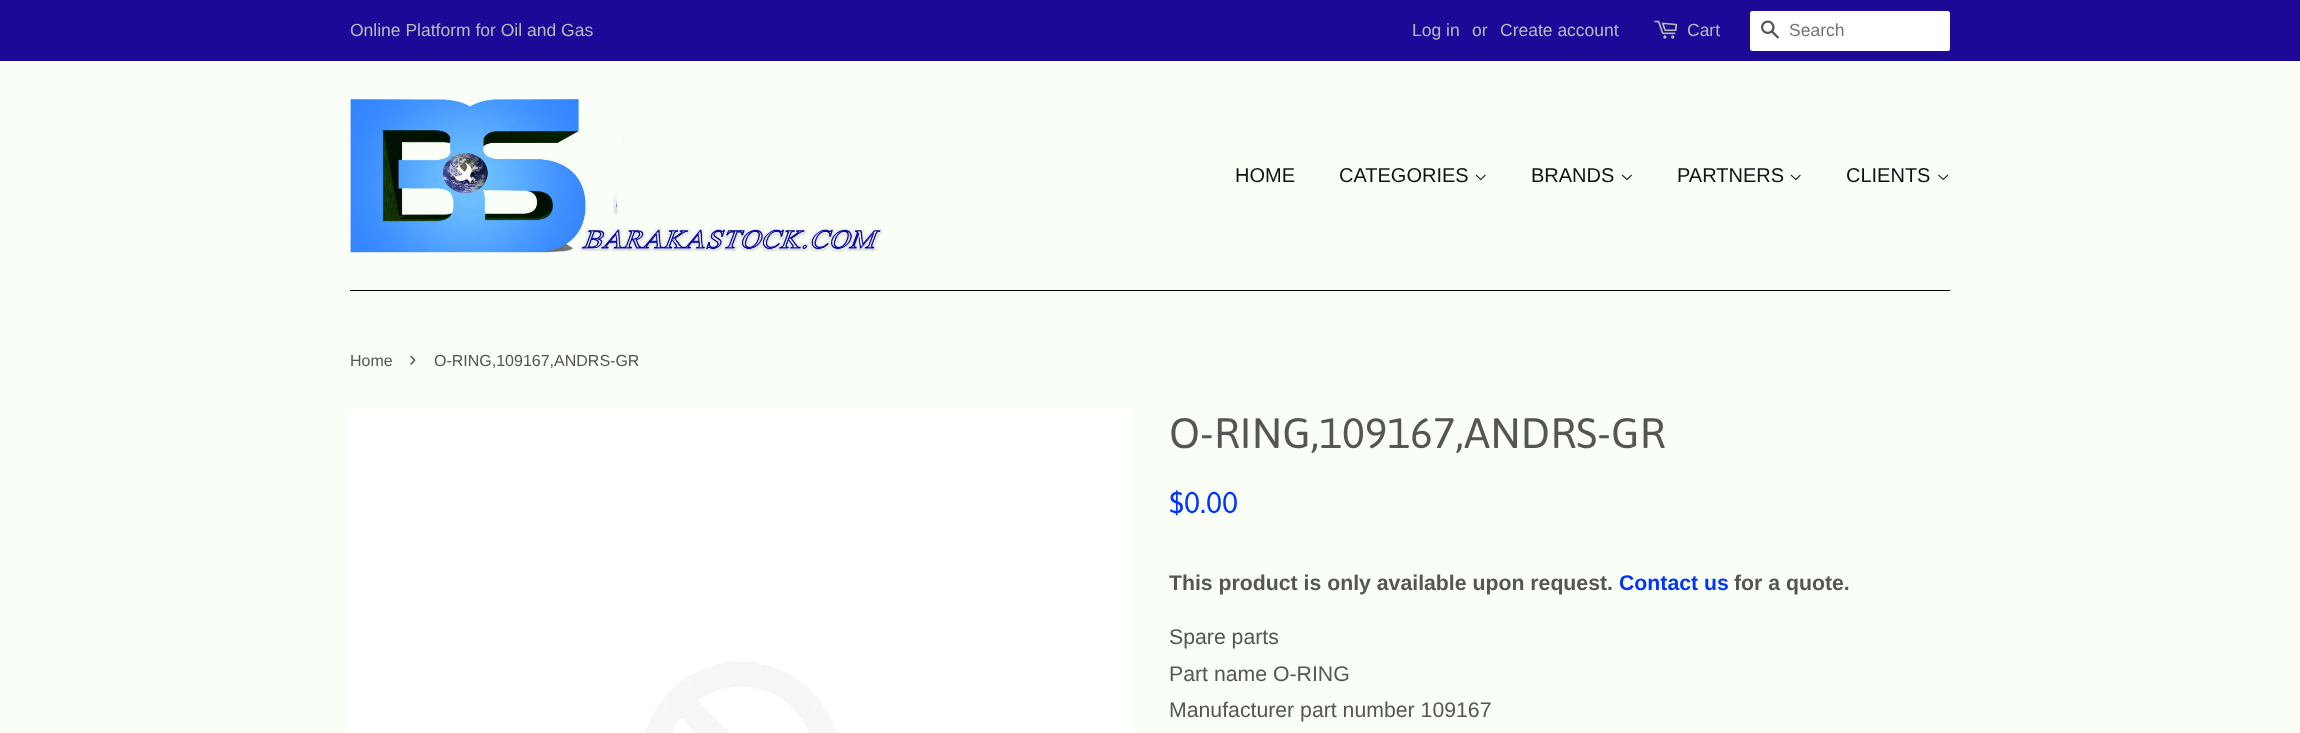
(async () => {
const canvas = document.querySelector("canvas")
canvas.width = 2300
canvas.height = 733
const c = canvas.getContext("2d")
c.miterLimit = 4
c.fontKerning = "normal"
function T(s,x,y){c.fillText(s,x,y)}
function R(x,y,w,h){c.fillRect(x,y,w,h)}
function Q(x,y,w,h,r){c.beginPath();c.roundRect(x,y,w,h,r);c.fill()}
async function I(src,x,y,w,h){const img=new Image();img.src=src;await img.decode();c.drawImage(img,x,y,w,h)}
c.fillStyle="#f9fff6"
R(0,0,2300,733)
c.fillStyle="#1c0997"
R(0,0,2300,61)
c.font="17.5px Liberation Sans"
c.fillStyle="#bbb"
T("Online Platform for Oil and Gas",350,36)
T("Log in",1412,36)
T("or",1472,36)
T("Create account",1500,36)
await I("1.png",1654,20,24,19)
T("Cart",1687,36)
c.fillStyle="#fff"
Q(1750,11,200,40,2.5)
await I("2.png",1761,20,18,19)
c.fillStyle="#757575"
T("Search",1789,36)
c.fillStyle="#000"
R(350,290,1600,1)
await I("3.png",350,98,533,155)
c.font="20px Liberation Sans"
c.fillStyle="#111"
T("HOME",1235,182)
T("CATEGORIES",1339,182)
await I("4.png",1475,174,11,7)
T("BRANDS",1531,182)
await I("5.png",1622,174,10,7)
T("PARTNERS",1677,182)
await I("4.png",1790,174,11,7)
T("CLIENTS",1846,182)
await I("6.png",1938,174,11,7)
c.font="16px Liberation Sans"
c.fillStyle="#555"
T("Home",350,366)
c.font="22px Liberation Sans"
T("›",409,366)
c.font="16px Liberation Sans"
T("O-RING,109167,ANDRS-GR",434,366)
await I("7.png",350,407,781,326)
c.font="42.5px Asap"
T("O-RING,109167,ANDRS-GR",1169,448)
c.font="30px Asap"
c.fillStyle="#0234ff"
T("$0.00",1169,513)
c.font="bold 21.25px Liberation Sans"
c.fillStyle="#555"
T("This product is only available upon request.",1169,590)
c.fillStyle="#0234ff"
T("Contact us",1619,590)
c.fillStyle="#555"
T("for a quote.",1734,590)
c.font="21.25px Liberation Sans"
T("Spare parts",1169,644)
T("Part name O-RING",1169,681)
T("Manufacturer part number 109167",1169,717)
})()
